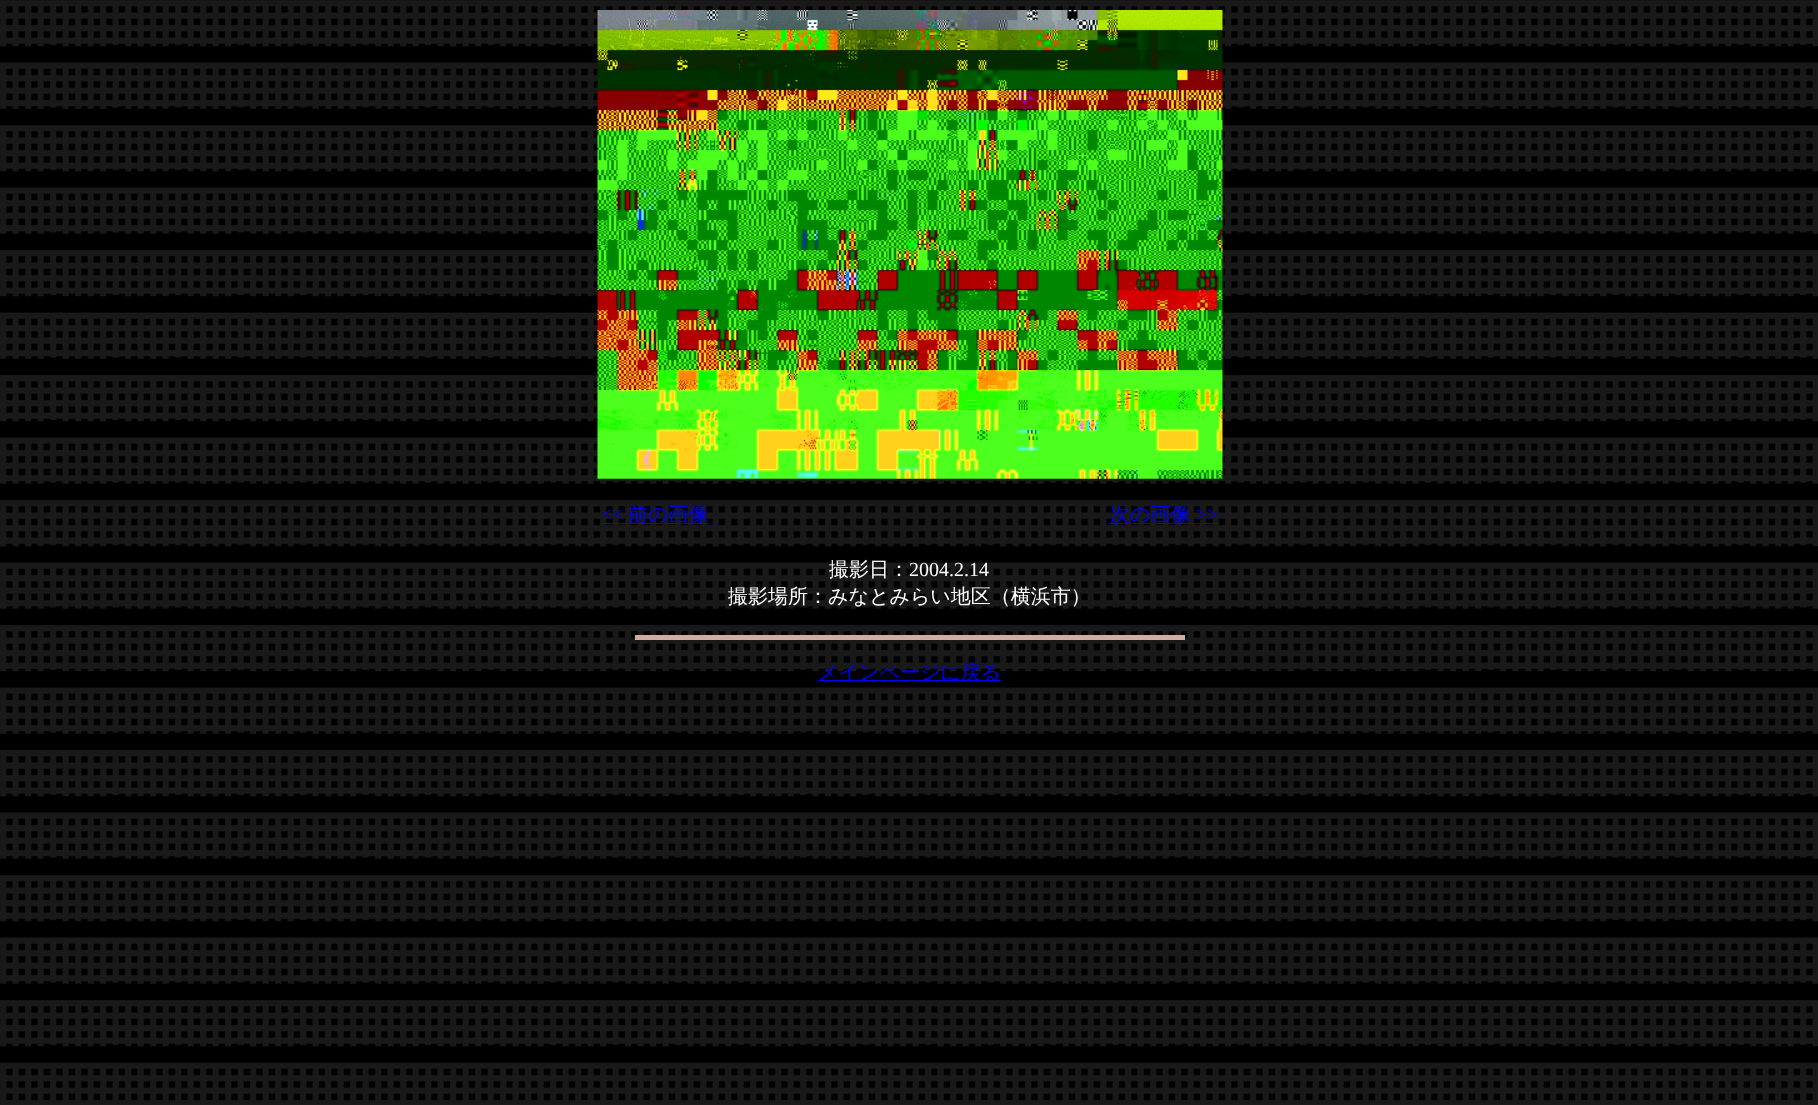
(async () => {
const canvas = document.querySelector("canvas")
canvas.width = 1818
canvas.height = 1105
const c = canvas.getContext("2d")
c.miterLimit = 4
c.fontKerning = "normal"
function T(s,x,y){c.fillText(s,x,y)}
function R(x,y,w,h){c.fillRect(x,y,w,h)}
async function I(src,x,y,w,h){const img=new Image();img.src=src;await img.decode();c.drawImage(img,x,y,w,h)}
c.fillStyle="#000"
R(0,0,1818,1105)
await I("1.png",0,0,1818,1105)
await I("2.png",597,10,626,469)
c.font="20px Liberation Serif"
c.fillStyle="#00f"
T("<<",601,521)
R(601,523,108,1)
c.font="500 20px WenQuanYi Zen Hei"
T("前の画像",628,521)
R(1110,523,109,1)
T("次の画像",1110,521)
c.font="20px Liberation Serif"
T(">>",1196,521)
c.font="500 20px WenQuanYi Zen Hei"
c.fillStyle="#fff"
T("撮影日：",829,576)
c.font="20px Liberation Serif"
T("2004.2.14",909,576)
c.font="500 20px WenQuanYi Zen Hei"
T("撮影場所：みなとみらい地区（横浜市）",728,603)
c.fillStyle="#d1aca3"
R(635,635,550,5)
c.fillStyle="#00f"
R(818,680,183,1)
T("メインページに戻る",818,679)
})()
